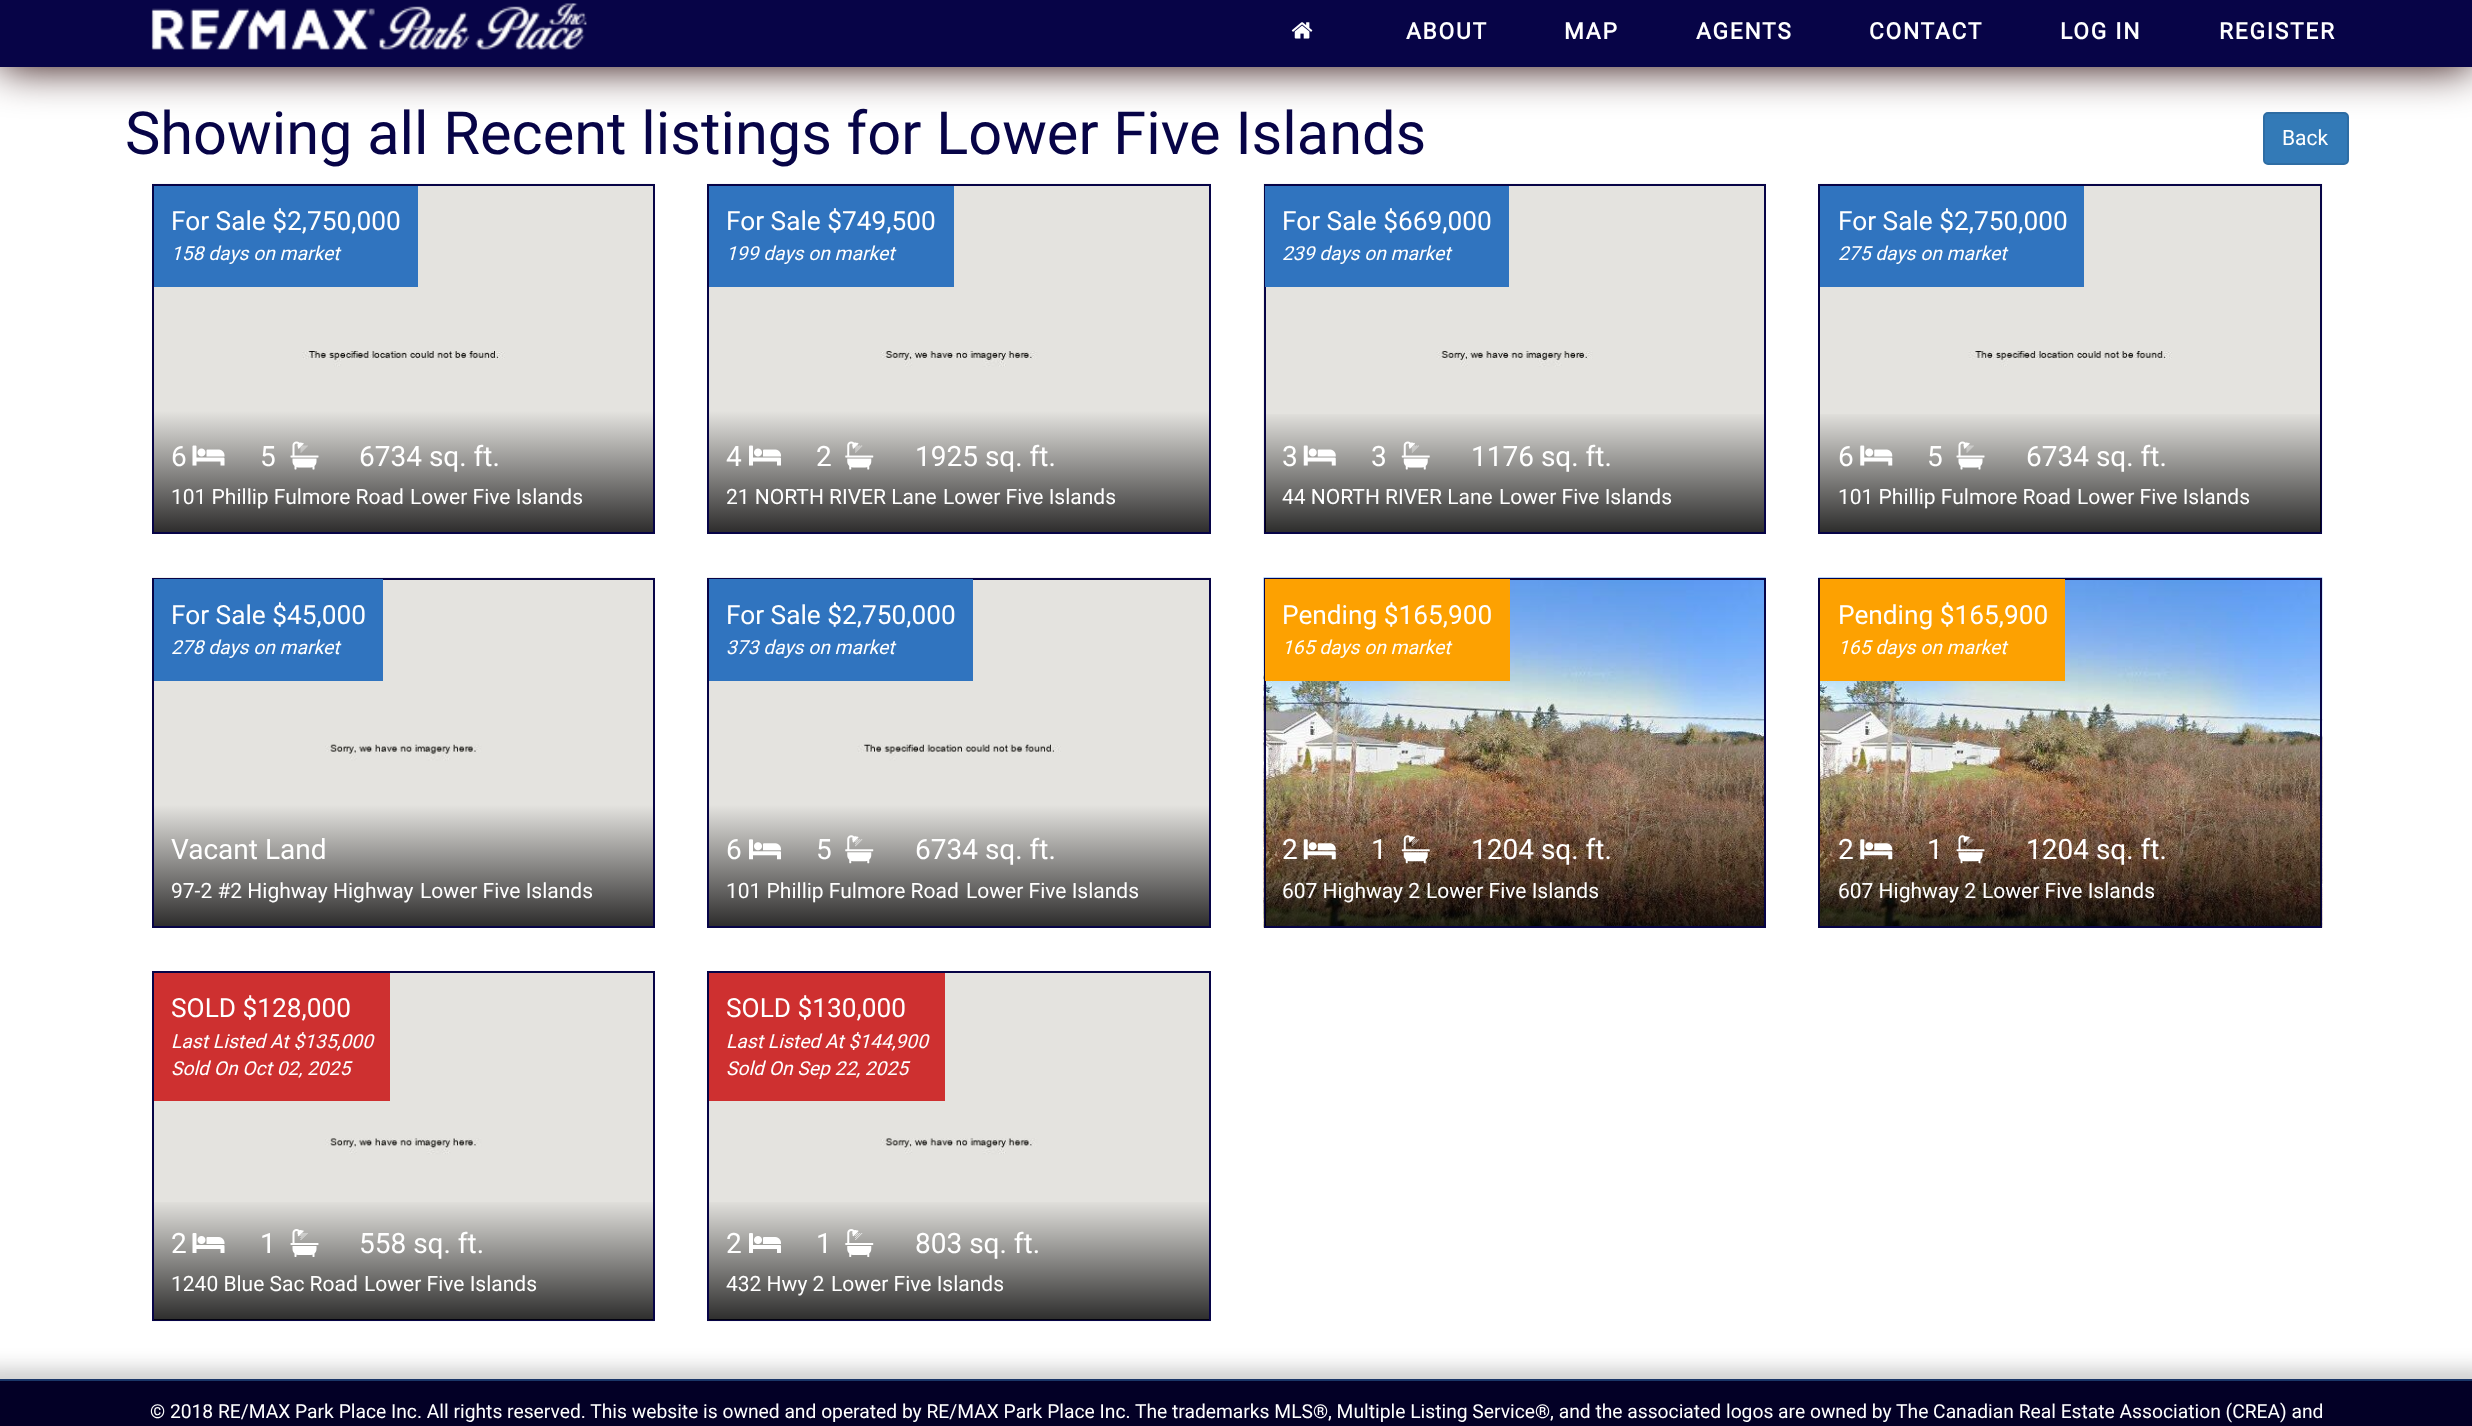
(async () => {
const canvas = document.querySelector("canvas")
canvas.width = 2472
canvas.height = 1426
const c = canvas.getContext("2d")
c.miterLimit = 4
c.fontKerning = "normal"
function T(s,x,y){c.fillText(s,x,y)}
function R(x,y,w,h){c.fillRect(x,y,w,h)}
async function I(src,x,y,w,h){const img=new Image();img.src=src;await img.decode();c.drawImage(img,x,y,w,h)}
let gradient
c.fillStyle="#fff"
R(0,0,2472,1426)
c.fillStyle="#337ab7"
c.beginPath()
c.roundRect(2264,113,84,51,4)
c.fill()
c.strokeStyle="#2e6da4"
c.lineWidth=2
c.stroke()
c.fillStyle="#230000"
c.filter="blur(22px)"
c.beginPath()
c.rect(0,-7,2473,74)
c.fill()
c.filter="none"
c.fillStyle="#070447"
R(0,0,2472,67)
await I("1.png",151,3,436,47)
await I("2.png",1291,22,22,17)
c.letterSpacing="1.75px"
c.font="bold 22.75px Roboto"
c.fillStyle="#fff"
T("ABOUT",1406,39)
T("MAP",1564,39)
T("AGENTS",1696,39)
T("CONTACT",1869,39)
T("LOG IN",2060,39)
T("REGISTER",2219,39)
c.letterSpacing="0px"
c.font="59.5px Roboto"
c.fillStyle="#070447"
T("Showing all Recent listings for Lower Five Islands",125,154)
c.font="21px Roboto"
c.fillStyle="#fff"
T("Back",2282,145)
await I("3.png",152,183,503,228)
c.strokeStyle="#070447"
c.strokeRect(153,185,501,348)
c.fillStyle="#3074bf"
R(154,186,264,101)
c.font="26.25px Roboto"
c.fillStyle="#fff"
T("For Sale $2,750,000",171,230)
c.font="italic 19.25px Roboto"
T("158 days on market",171,260)
gradient = c.createLinearGradient(403,411,403,532)
gradient.addColorStop(0,"#e4e3df")
gradient.addColorStop(1,"#2e2d2d")
c.fillStyle = gradient
R(154,411,499,121)
c.font="28px Roboto"
c.fillStyle="#fff"
T("6",171,466)
await I("4.png",192,445,33,21)
T("5",260,466)
await I("5.png",290,441,29,29)
T("6734 sq. ft.",359,466)
c.font="21px Roboto"
T("101 Phillip Fulmore Road",171,504)
T("Lower Five Islands",410,504)
await I("6.png",707,183,504,228)
c.strokeRect(708,185,502,348)
c.fillStyle="#3074bf"
R(709,186,245,101)
c.font="26.25px Roboto"
c.fillStyle="#fff"
T("For Sale $749,500",726,230)
c.font="italic 19.25px Roboto"
T("199 days on market",726,260)
gradient = c.createLinearGradient(959,411,959,532)
gradient.addColorStop(0,"#e4e3df")
gradient.addColorStop(1,"#2e2d2d")
c.fillStyle = gradient
R(709,411,500,121)
c.font="28px Roboto"
c.fillStyle="#fff"
T("4",726,466)
await I("7.png",749,445,32,21)
T("2",816,466)
await I("8.png",845,441,29,29)
T("1925 sq. ft.",915,466)
c.font="21px Roboto"
T("21 NORTH RIVER Lane",726,504)
T("Lower Five Islands",943,504)
await I("9.png",1263,183,503,351)
c.strokeRect(1265,185,500,348)
c.fillStyle="#3074bf"
R(1265,186,244,101)
c.font="26.25px Roboto"
c.fillStyle="#fff"
T("For Sale $669,000",1282,230)
c.font="italic 19.25px Roboto"
T("239 days on market",1282,260)
gradient = c.createLinearGradient(1515,411,1515,532)
gradient.addColorStop(0,"#00000000")
gradient.addColorStop(1,"#000000cc")
c.fillStyle = gradient
R(1265,414,499,118)
c.font="28px Roboto"
c.fillStyle="#fff"
T("3",1282,466)
await I("10.png",1303,445,33,21)
T("3",1371,466)
await I("11.png",1401,441,29,29)
T("1176 sq. ft.",1471,466)
c.font="21px Roboto"
T("44 NORTH RIVER Lane",1282,504)
T("Lower Five Islands",1499,504)
await I("12.png",1818,183,505,351)
c.strokeRect(1819,185,502,348)
c.fillStyle="#3074bf"
R(1820,186,264,101)
c.font="26.25px Roboto"
c.fillStyle="#fff"
T("For Sale $2,750,000",1838,230)
c.font="italic 19.25px Roboto"
T("275 days on market",1838,260)
gradient = c.createLinearGradient(2070,411,2070,532)
gradient.addColorStop(0,"#00000000")
gradient.addColorStop(1,"#000000cc")
c.fillStyle = gradient
R(1820,414,501,118)
c.font="28px Roboto"
c.fillStyle="#fff"
T("6",1838,466)
await I("13.png",1860,445,33,21)
T("5",1927,466)
await I("14.png",1956,441,29,29)
T("6734 sq. ft.",2026,466)
c.font="21px Roboto"
T("101 Phillip Fulmore Road",1838,504)
T("Lower Five Islands",2077,504)
await I("15.png",152,577,503,228)
c.strokeRect(153,579,501,348)
c.fillStyle="#3074bf"
R(154,579,229,102)
c.font="26.25px Roboto"
c.fillStyle="#fff"
T("For Sale $45,000",171,624)
c.font="italic 19.25px Roboto"
T("278 days on market",171,654)
gradient = c.createLinearGradient(403,805,403,926)
gradient.addColorStop(0,"#e4e3df")
gradient.addColorStop(1,"#2e2d2d")
c.fillStyle = gradient
R(154,805,499,121)
c.font="28px Roboto"
c.fillStyle="#fff"
T("Vacant Land",171,859)
c.font="21px Roboto"
T("97-2 #2 Highway Highway",171,898)
T("Lower Five Islands",420,898)
await I("16.png",707,577,504,228)
c.strokeRect(708,579,502,348)
c.fillStyle="#3074bf"
R(709,579,264,102)
c.font="26.25px Roboto"
c.fillStyle="#fff"
T("For Sale $2,750,000",726,624)
c.font="italic 19.25px Roboto"
T("373 days on market",726,654)
gradient = c.createLinearGradient(959,805,959,926)
gradient.addColorStop(0,"#e4e3df")
gradient.addColorStop(1,"#2e2d2d")
c.fillStyle = gradient
R(709,805,500,121)
c.font="28px Roboto"
c.fillStyle="#fff"
T("6",726,859)
await I("17.png",749,839,32,21)
T("5",816,859)
await I("18.png",845,835,29,29)
T("6734 sq. ft.",915,859)
c.font="21px Roboto"
T("101 Phillip Fulmore Road",726,898)
T("Lower Five Islands",966,898)
await I("19.png",1263,577,503,351)
c.strokeRect(1265,579,500,348)
c.fillStyle="#fda101"
R(1265,579,245,102)
c.font="26.25px Roboto"
c.fillStyle="#fff"
T("Pending $165,900",1282,624)
c.font="italic 19.25px Roboto"
T("165 days on market",1282,654)
gradient = c.createLinearGradient(1515,805,1515,926)
gradient.addColorStop(0,"#00000000")
gradient.addColorStop(1,"#000000cc")
c.fillStyle = gradient
R(1265,808,499,118)
c.font="28px Roboto"
c.fillStyle="#fff"
T("2",1282,859)
await I("20.png",1303,839,33,21)
T("1",1371,859)
await I("21.png",1401,835,29,29)
T("1204 sq. ft.",1471,859)
c.font="21px Roboto"
T("607 Highway 2",1282,898)
T("Lower Five Islands",1426,898)
await I("22.png",1818,577,505,351)
c.strokeRect(1819,579,502,348)
c.fillStyle="#fda101"
R(1820,579,245,102)
c.font="26.25px Roboto"
c.fillStyle="#fff"
T("Pending $165,900",1838,624)
c.font="italic 19.25px Roboto"
T("165 days on market",1838,654)
gradient = c.createLinearGradient(2070,805,2070,926)
gradient.addColorStop(0,"#00000000")
gradient.addColorStop(1,"#000000cc")
c.fillStyle = gradient
R(1820,808,501,118)
c.font="28px Roboto"
c.fillStyle="#fff"
T("2",1838,859)
await I("23.png",1860,839,33,21)
T("1",1927,859)
await I("24.png",1956,835,29,29)
T("1204 sq. ft.",2026,859)
c.font="21px Roboto"
T("607 Highway 2",1838,898)
T("Lower Five Islands",1982,898)
await I("25.png",152,973,503,349)
c.strokeRect(153,972,501,348)
c.fillStyle="#ce3030"
R(154,973,236,128)
c.font="26.25px Roboto"
c.fillStyle="#fff"
T("SOLD $128,000",171,1017)
c.font="italic 19.25px Roboto"
T("Last Listed At $135,000",171,1048)
T("Sold On Oct 02, 2025",171,1075)
gradient = c.createLinearGradient(403,1199,403,1320)
gradient.addColorStop(0,"#00000000")
gradient.addColorStop(1,"#000000cc")
c.fillStyle = gradient
R(154,1202,499,118)
c.font="28px Roboto"
c.fillStyle="#fff"
T("2",171,1253)
await I("26.png",192,1233,33,20)
T("1",260,1253)
await I("27.png",290,1229,29,28)
T("558 sq. ft.",359,1253)
c.font="21px Roboto"
T("1240 Blue Sac Road",171,1291)
T("Lower Five Islands",364,1291)
await I("28.png",707,973,504,349)
c.strokeRect(708,972,502,348)
c.fillStyle="#ce3030"
R(709,973,236,128)
c.font="26.25px Roboto"
c.fillStyle="#fff"
T("SOLD $130,000",726,1017)
c.font="italic 19.25px Roboto"
T("Last Listed At $144,900",726,1048)
T("Sold On Sep 22, 2025",726,1075)
gradient = c.createLinearGradient(959,1199,959,1320)
gradient.addColorStop(0,"#00000000")
gradient.addColorStop(1,"#000000cc")
c.fillStyle = gradient
R(709,1202,500,118)
c.font="28px Roboto"
c.fillStyle="#fff"
T("2",726,1253)
await I("29.png",749,1233,32,20)
T("1",816,1253)
await I("30.png",845,1229,29,28)
T("803 sq. ft.",915,1253)
c.font="21px Roboto"
T("432 Hwy 2",726,1291)
T("Lower Five Islands",831,1291)
c.fillStyle="#333"
c.filter="blur(13px)"
c.beginPath()
c.rect(-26,1379,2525,7)
c.fill()
c.filter="none"
c.fillStyle="#1a3668"
R(0,1379,2472,2)
c.fillStyle="#030026"
R(0,1381,2472,45)
c.font="19.25px Roboto"
c.fillStyle="#fff"
T("© 2018 RE/MAX Park Place Inc. All rights reserved. This website is owned and operated by RE/MAX Park Place Inc. The trademarks MLS®, Multiple Listing Service®, and the associated logos are owned by The Canadian Real Estate Association (CREA) and",150,1418)
})()
